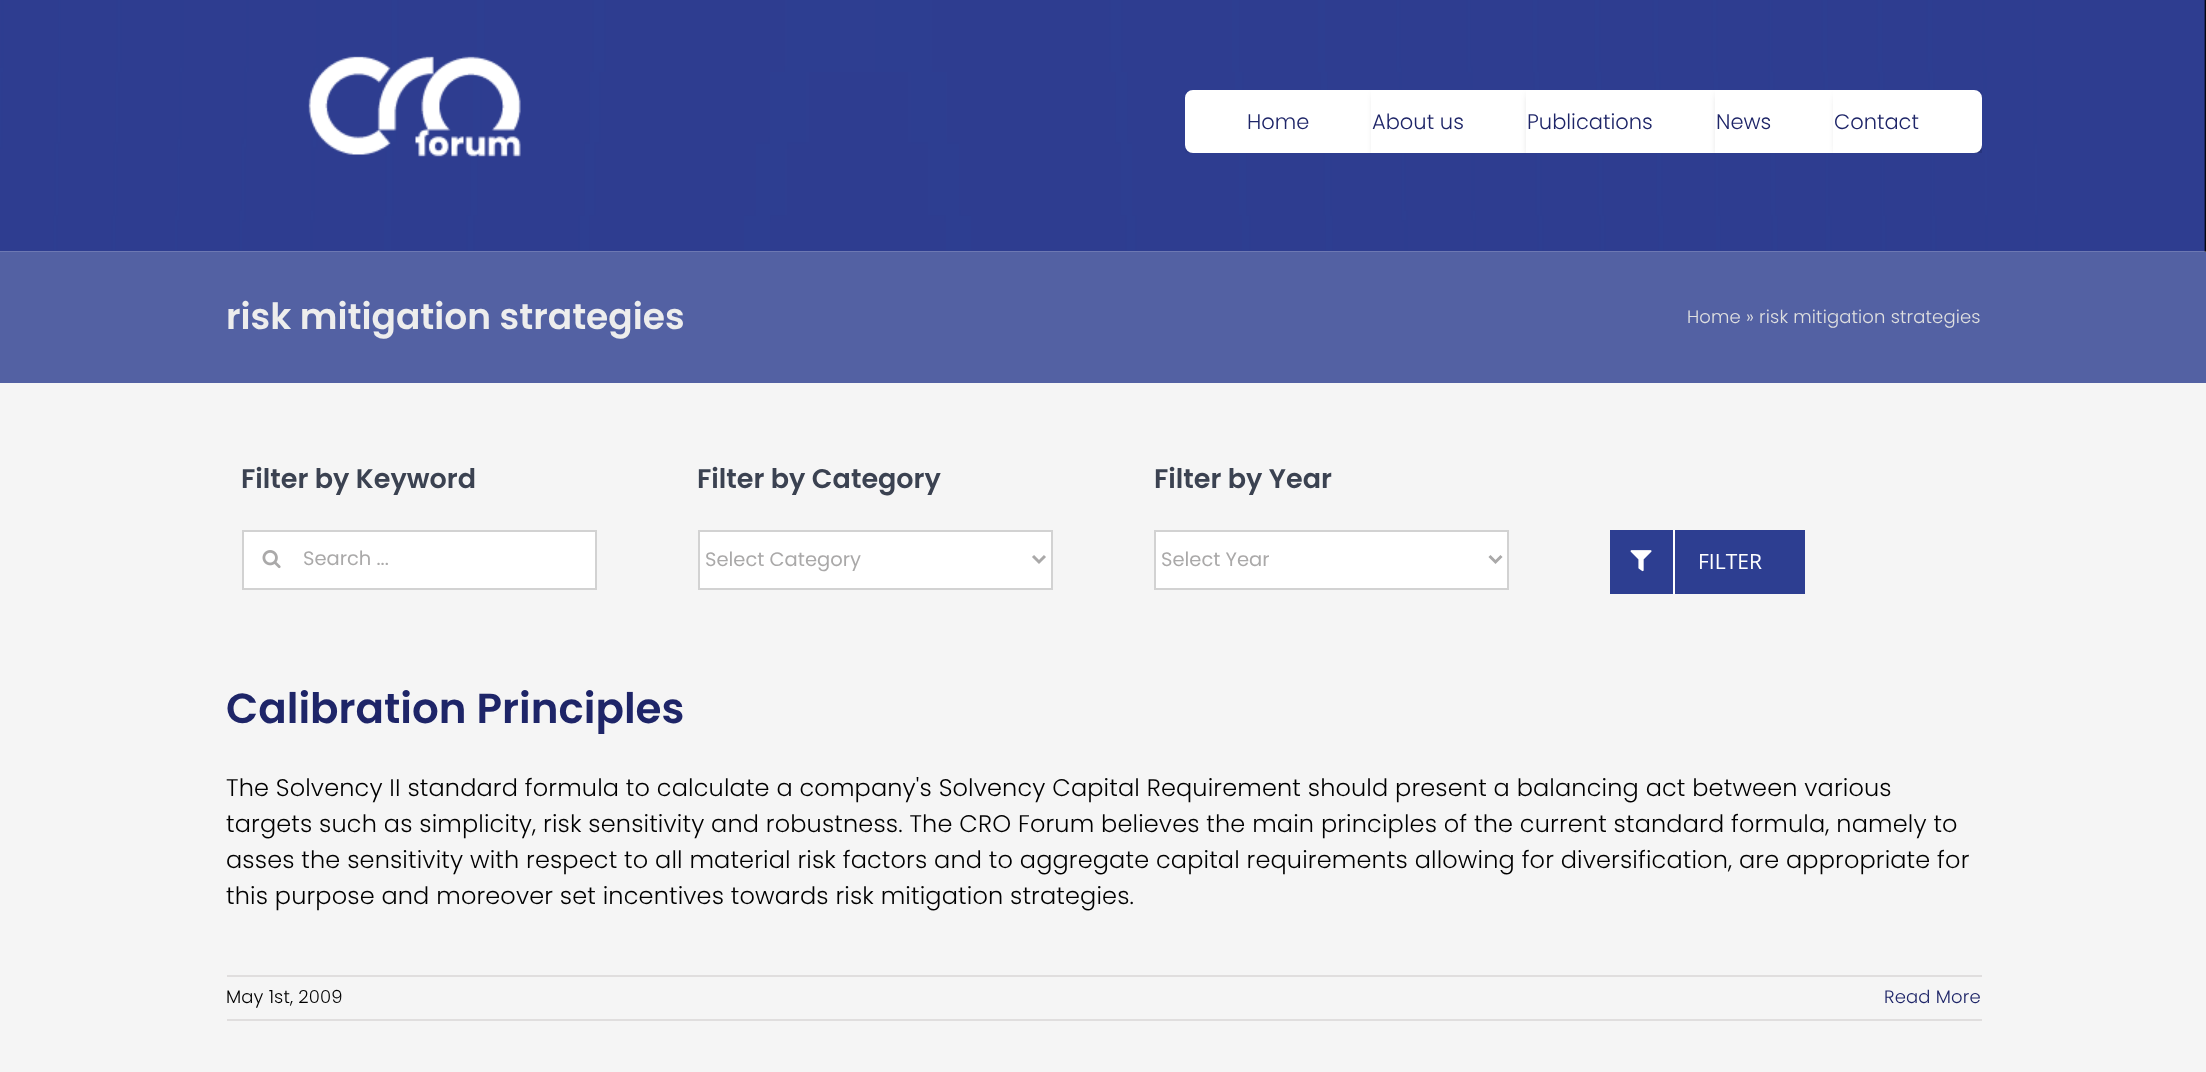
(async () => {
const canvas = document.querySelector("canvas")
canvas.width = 2206
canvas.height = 1072
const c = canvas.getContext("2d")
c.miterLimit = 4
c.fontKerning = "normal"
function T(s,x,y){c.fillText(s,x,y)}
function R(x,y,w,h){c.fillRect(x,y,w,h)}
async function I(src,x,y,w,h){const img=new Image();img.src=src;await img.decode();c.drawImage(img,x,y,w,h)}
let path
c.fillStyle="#5361a3"
R(0,0,2206,1072)
c.fillStyle="#fff"
R(0,251,2206,1)
await I("1.png",0,0,2206,252)
await I("2.png",308,56,213,101)
c.save()
c.beginPath()
c.rect(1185,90,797,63)
c.clip()
c.fillStyle="#00000047"
c.filter="blur(4px)"
c.beginPath()
c.roundRect(1190,95,183,60,6)
c.fill()
c.filter="none"
c.restore()
c.beginPath()
c.roundRect(1186,91,184,61,[7,0,0,7])
c.fill()
c.strokeStyle="#fff"
c.lineWidth=2
c.stroke()
c.font="300 21px Poppins"
c.fillStyle="#1e2568"
T("Home",1247,129)
c.save()
c.beginPath()
c.rect(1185,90,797,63)
c.clip()
c.fillStyle="#00000047"
c.filter="blur(4px)"
c.beginPath()
c.rect(1376,95,151,60)
c.fill()
c.filter="none"
c.restore()
c.fillStyle="#fff"
R(1371,90,155,63)
c.fillStyle="#1e2568"
T("About us",1372,129)
c.save()
c.beginPath()
c.rect(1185,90,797,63)
c.clip()
c.fillStyle="#00000047"
c.filter="blur(4px)"
c.beginPath()
c.rect(1530,95,186,60)
c.fill()
c.filter="none"
c.restore()
c.fillStyle="#fff"
R(1526,90,189,63)
c.fillStyle="#1e2568"
T("Publications",1527,129)
c.save()
c.beginPath()
c.rect(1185,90,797,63)
c.clip()
c.fillStyle="#00000047"
c.filter="blur(4px)"
c.beginPath()
c.rect(1719,95,116,60)
c.fill()
c.filter="none"
c.restore()
c.fillStyle="#fff"
R(1715,90,118,63)
c.fillStyle="#1e2568"
T("News",1716,129)
c.save()
c.beginPath()
c.rect(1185,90,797,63)
c.clip()
c.fillStyle="#00000047"
c.filter="blur(4px)"
c.beginPath()
c.roundRect(1838,95,145,60,6)
c.fill()
c.filter="none"
c.restore()
c.fillStyle="#fff"
c.beginPath()
c.roundRect(1834,91,147,61,[0,7,7,0])
c.fill()
c.stroke()
c.fillStyle="#1e2568"
T("Contact",1834,129)
c.font="600 36px Poppins"
c.fillStyle="#ededed"
T("risk mitigation strategies",226,329)
c.letterSpacing="0.15px"
c.font="300 18px Poppins"
c.fillStyle="#e0e0e0"
T("Home » risk mitigation strategies",1687,323)
c.fillStyle="#f5f5f5"
R(0,383,2206,689)
c.letterSpacing="0px"
c.font="600 27px Poppins"
c.fillStyle="#3b4251"
T("Filter by Keyword",241,488)
c.fillStyle="#fff"
c.beginPath()
c.rect(243,531,353,58)
c.fill()
c.strokeStyle="#d2d2d2"
c.stroke()
await I("3.png",262,550,19,19)
c.font="19.5px Poppins"
c.fillStyle="#aaa9a9"
T("Search ...",303,565)
c.font="600 27px Poppins"
c.fillStyle="#3b4251"
T("Filter by Category",697,488)
c.fillStyle="#fff"
c.beginPath()
c.rect(699,531,353,58)
c.fill()
c.stroke()
path = new Path2D("M1033 556l6 6l6-6")
c.strokeStyle="#aaa9a9"
c.lineWidth=3
c.stroke(path)
c.font="19.5px Poppins"
c.fillStyle="#aaa9a9"
T("Select Category",705,566)
c.font="600 27px Poppins"
c.fillStyle="#3b4251"
T("Filter by Year",1154,488)
c.fillStyle="#fff"
c.beginPath()
c.rect(1155,531,353,58)
c.fill()
c.strokeStyle="#d2d2d2"
c.lineWidth=2
c.stroke()
path = new Path2D("M1489.5 556l6 6l6-6")
c.strokeStyle="#aaa9a9"
c.lineWidth=3
c.stroke(path)
c.font="19.5px Poppins"
c.fillStyle="#aaa9a9"
T("Select Year",1161,566)
c.fillStyle="#2d3e91"
R(1610,530,195,64)
c.fillStyle="#fff"
R(1673,530,2,64)
await I("4.png",1630,550,22,22)
c.font="21px Open Sans"
T("FILTER",1698,569)
c.font="600 42px Poppins"
c.fillStyle="#1e2568"
T("Calibration Principles",226,723)
c.letterSpacing="0.15px"
c.font="300 24px Poppins"
c.fillStyle="#000"
T("The Solvency II standard formula to calculate a company's Solvency Capital Requirement should present a balancing act between various",226,796)
T("targets such as simplicity, risk sensitivity and robustness. The CRO Forum believes the main principles of the current standard formula, namely to",226,832)
T("asses the sensitivity with respect to all material risk factors and to aggregate capital requirements allowing for diversification, are appropriate for",226,868)
T("this purpose and moreover set incentives towards risk mitigation strategies.",226,904)
c.fillStyle="#e0dede"
R(227,975,1755,2)
R(227,1019,1755,2)
c.font="300 18px Poppins"
c.fillStyle="#000"
T("May 1st, 2009",226,1003)
c.fillStyle="#1e2568"
T("Read More",1884,1003)
})()
